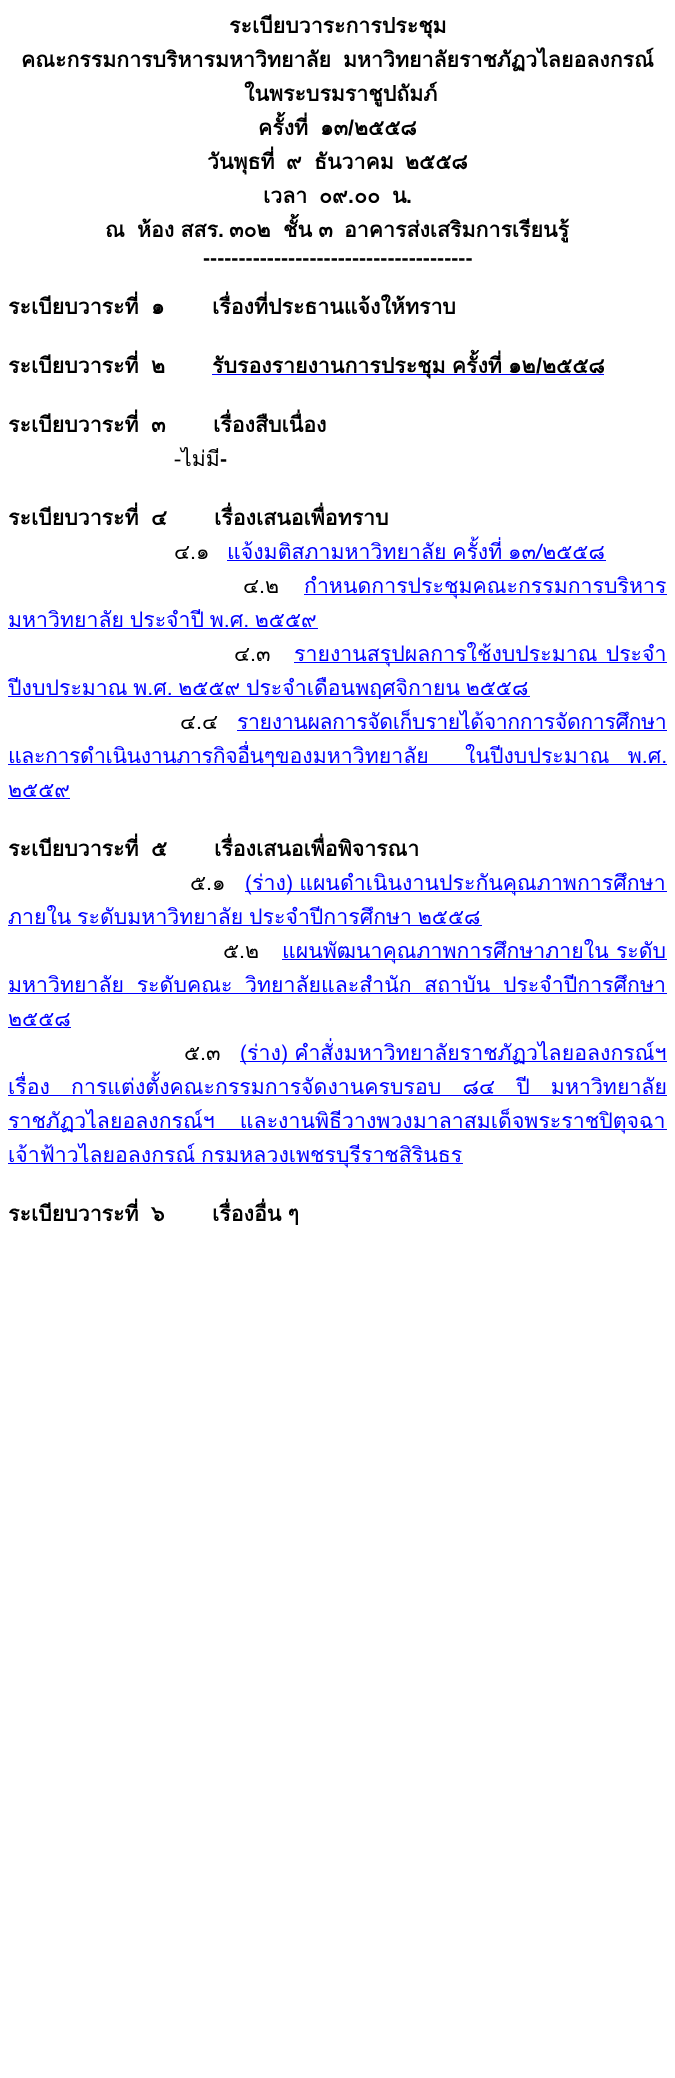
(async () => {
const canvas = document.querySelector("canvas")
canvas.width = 675
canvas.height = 2078
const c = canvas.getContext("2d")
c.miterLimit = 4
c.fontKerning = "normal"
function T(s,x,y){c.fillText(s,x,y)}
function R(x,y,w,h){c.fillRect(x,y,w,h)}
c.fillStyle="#fff"
R(0,0,675,2078)
c.font="bold 21.3px Loma"
c.fillStyle="#000"
T("ระเบียบวาระการประชุม",229,33)
T("คณะกรรมการบริหารมหาวิทยาลัย",21,67)
T("มหาวิทยาลัยราชภัฏวไลยอลงกรณ์",343,67)
T("ในพระบรมราชูปถัมภ์",244,101)
T("ครั้งที่",258,135)
T("๑๓",320,135)
c.font="bold 21.3px Liberation Sans"
T("/",348,135)
c.font="bold 21.3px Loma"
T("๒๕๕๘",354,135)
T("วันพุธที่",207,169)
T("๙",286,169)
T("ธันวาคม",314,169)
T("๒๕๕๘",405,169)
T("เวลา",263,203)
T("๐๙",319,203)
c.font="bold 21.3px Liberation Sans"
T(".",348,203)
c.font="bold 21.3px Loma"
T("๐๐",354,203)
T("น",392,203)
c.font="bold 21.3px Liberation Sans"
T(".",406,203)
c.font="bold 21.3px Loma"
T("ณ",105,237)
c.wordSpacing="-1px"
T("ห้อง สสร",137,237)
c.wordSpacing="0px"
c.font="bold 21.3px Liberation Sans"
T(".",218,237)
c.font="bold 21.3px Loma"
T("๓๐๒",229,237)
c.wordSpacing="-1px"
T("ชั้น ๓",283,237)
c.wordSpacing="0px"
T("อาคารส่งเสริมการเรียนรู้",344,237)
c.font="bold 21.3px Liberation Sans"
T("--------------------------------------",203,265)
c.font="bold 21.3px Loma"
T("ระเบียบวาระที่",8,314)
T("๑",151,314)
T("เรื่องที่ประธานแจ้งให้ทราบ",212,314)
T("ระเบียบวาระที่",8,373)
T("๒",151,373)
c.fillStyle="#00f"
R(212,374,392,1)
c.wordSpacing="-1px"
c.fillStyle="#000"
T("รับรองรายงานการประชุม ครั้งที่ ๑๒",212,373)
c.wordSpacing="0px"
c.font="bold 21.3px Liberation Sans"
T("/",536,373)
c.font="bold 21.3px Loma"
T("๒๕๕๘",542,373)
T("ระเบียบวาระที่",8,432)
T("๓",151,432)
T("เรื่องสืบเนื่อง",213,432)
c.font="21.3px Loma"
T("-ไม่มี",174,466)
c.font="bold 21.3px Liberation Sans"
T("-",220,466)
c.font="bold 21.3px Loma"
T("ระเบียบวาระที่",8,525)
T("๔",151,525)
T("เรื่องเสนอเพื่อทราบ",214,525)
c.font="21.3px Loma"
T("๔.๑",174,559)
c.wordSpacing="-1.5px"
c.fillStyle="#00f"
T("แจ้งมติสภามหาวิทยาลัย ครั้งที่ ๑๓/๒๕๕๘",227,559)
R(227,560,379,1)
c.wordSpacing="0px"
c.fillStyle="#000"
T("๔.๒",243,593)
c.fillStyle="#00f"
R(304,594,363,1)
T("กำหนดการประชุมคณะกรรมการบริหาร",304,593)
c.wordSpacing="-1.5px"
T("มหาวิทยาลัย ประจำปี พ.ศ. ๒๕๕๙",8,627)
R(8,628,310,1)
c.wordSpacing="0px"
c.fillStyle="#000"
T("๔.๓",234,661)
c.fillStyle="#00f"
R(294,662,373,1)
c.wordSpacing="1px"
T("รายงานสรุปผลการใช้งบประมาณ ประจำ",294,661)
R(8,696,522,1)
c.wordSpacing="-1.5px"
T("ปีงบประมาณ พ.ศ. ๒๕๕๙ ประจำเดือนพฤศจิกายน ๒๕๕๘",8,695)
c.wordSpacing="0px"
c.fillStyle="#000"
T("๔.๔",180,729)
c.letterSpacing="-0.4px"
c.fillStyle="#00f"
T("รายงานผลการจัดเก็บรายได้จากการจัดการศึกษา",237,729)
R(237,730,430,1)
R(8,764,659,1)
T("และการดำเนินงานภารกิจอื่นๆ",8,763)
c.letterSpacing="0px"
T("ของมหาวิทยาลัย",275,763)
c.wordSpacing="11px"
T("ในปีงบประมาณ พ.ศ.",465,763)
c.wordSpacing="0px"
T("๒๕๕๙",8,797)
R(8,798,62,1)
c.font="bold 21.3px Loma"
c.fillStyle="#000"
T("ระเบียบวาระที่",8,856)
T("๕",151,856)
T("เรื่องเสนอเพื่อพิจารณา",214,856)
c.font="21.3px Loma"
T("๕.๑",190,890)
c.fillStyle="#00f"
R(245,891,422,1)
c.wordSpacing="-1px"
T("(ร่าง) แผนดำเนินงานประกันคุณภาพการศึกษา",245,890)
c.wordSpacing="-1.5px"
T("ภายใน ระดับมหาวิทยาลัย ประจำปีการศึกษา ๒๕๕๘",8,924)
R(8,925,474,1)
c.wordSpacing="0px"
c.fillStyle="#000"
T("๕.๒",223,958)
c.fillStyle="#00f"
R(282,959,385,1)
T("แผนพัฒนาคุณภาพการศึกษาภายใน ระดับ",282,958)
c.wordSpacing="5.5px"
T("มหาวิทยาลัย ระดับคณะ วิทยาลัยและสำนัก สถาบัน ประจำปีการศึกษา",8,992)
R(8,993,659,1)
c.wordSpacing="0px"
T("๒๕๕๘",8,1026)
R(8,1027,63,1)
c.fillStyle="#000"
T("๕.๓",184,1060)
c.fillStyle="#00f"
R(240,1061,427,1)
c.wordSpacing="-1px"
T("(ร่าง) คำสั่งมหาวิทยาลัยราชภัฏวไลยอลงกรณ์ฯ",240,1060)
c.wordSpacing="14px"
T("เรื่อง การแต่งตั้งคณะกรรมการจัดงานครบรอบ ๘๔ ปี มหาวิทยาลัย",8,1094)
R(8,1095,659,1)
R(8,1129,659,1)
c.wordSpacing="18px"
T("ราชภัฏวไลยอลงกรณ์ฯ และงานพิธีวางพวงมาลาสมเด็จพระราชปิตุจฉา",8,1128)
R(8,1163,455,1)
c.wordSpacing="-1.5px"
T("เจ้าฟ้าวไลยอลงกรณ์ กรมหลวงเพชรบุรีราชสิรินธร",8,1162)
c.wordSpacing="0px"
c.font="bold 21.3px Loma"
c.fillStyle="#000"
T("ระเบียบวาระที่",8,1221)
T("๖",151,1221)
c.wordSpacing="-1px"
T("เรื่องอื่น ๆ",212,1221)
})()
